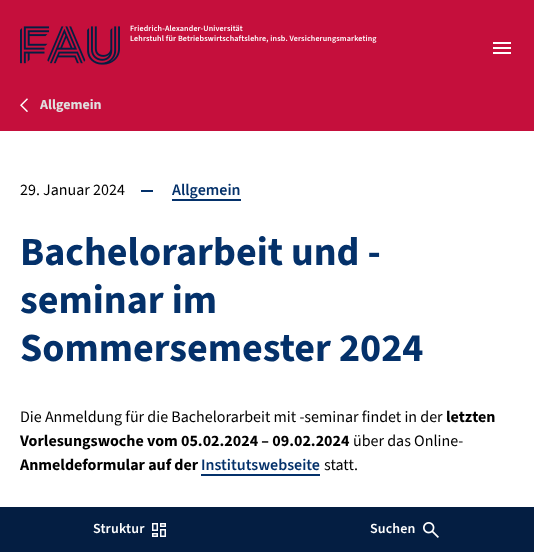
(async () => {
const canvas = document.querySelector("canvas")
canvas.width = 534
canvas.height = 552
const c = canvas.getContext("2d")
c.miterLimit = 4
c.fontKerning = "normal"
function T(s,x,y){c.fillText(s,x,y)}
function R(x,y,w,h){c.fillRect(x,y,w,h)}
async function I(src,x,y,w,h){const img=new Image();img.src=src;await img.decode();c.drawImage(img,x,y,w,h)}
c.fillStyle="#fff"
R(0,0,534,552)
c.fillStyle="#c50f3c"
R(0,0,534,131)
await I("1.png",20,98,8,14)
c.font="bold 14px 'Source Sans 3'"
c.fillStyle="#e0e0e0"
T("Allgemein",40,109)
await I("2.png",20,26,100,39)
c.letterSpacing="0.15px"
c.font="600 8px 'Source Sans 3'"
c.fillStyle="#fff"
T("Friedrich-Alexander-Universität",130,31)
T("Lehrstuhl für Betriebswirtschaftslehre, insb. Versicherungsmarketing",130,41)
R(493,42,18,2)
R(493,47,18,2)
R(493,52,18,2)
c.fillStyle="#041e42"
R(0,507,534,45)
c.font="600 14px 'Source Sans 3'"
c.fillStyle="#fff"
T("Struktur",93,533)
await I("3.png",152,523,14,14)
T("Suchen",370,533)
await I("4.png",423,522,16,16)
c.letterSpacing="0px"
c.font="16px 'Source Sans 3'"
c.fillStyle="#000"
T("29. Januar 2024",20,195)
c.fillStyle="#04316a"
R(141,190,12,2)
c.font="600 16px 'Source Sans 3'"
T("Allgemein",172,195)
R(172,199,69,2)
c.font="bold 40px 'Source Sans 3'"
T("Bachelorarbeit und -",20,265)
T("seminar im",20,313)
T("Sommersemester 2024",20,361)
c.font="16px 'Source Sans 3'"
c.fillStyle="#000"
T("Die Anmeldung für die Bachelorarbeit mit -seminar findet in der",20,422)
c.font="bold 16px 'Source Sans 3'"
T("letzten",446,422)
T("Vorlesungswoche vom 05.02.2024 – 09.02.2024",20,446)
c.font="16px 'Source Sans 3'"
T("über das Online-",353,446)
c.font="bold 16px 'Source Sans 3'"
T("Anmeldeformular auf der",20,470)
c.font="600 16px 'Source Sans 3'"
c.fillStyle="#04316a"
T("Institutswebseite",201,470)
R(201,474,119,2)
c.font="16px 'Source Sans 3'"
c.fillStyle="#000"
T("statt.",324,470)
})()
